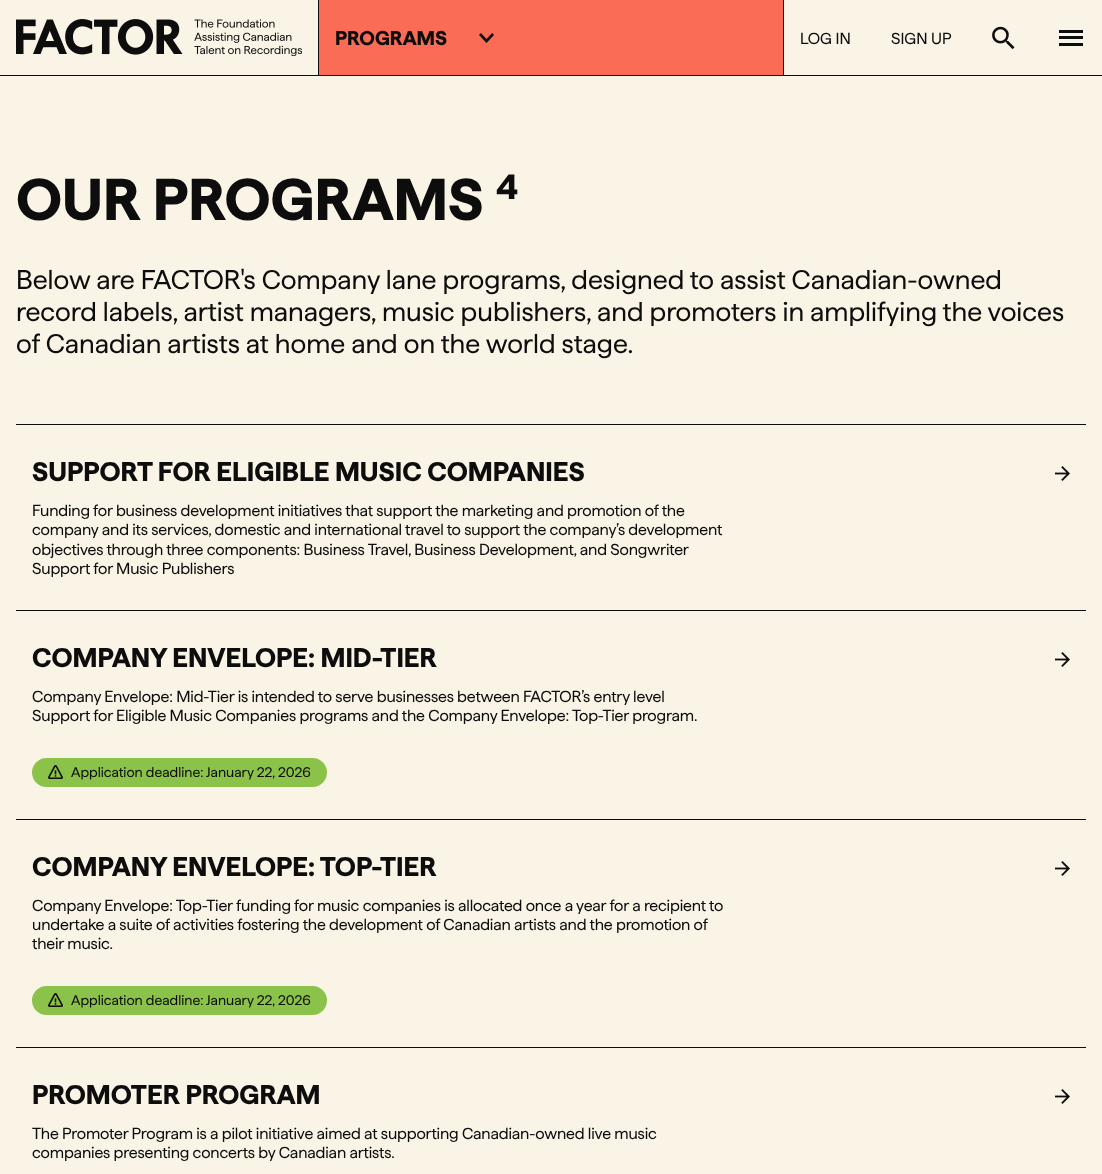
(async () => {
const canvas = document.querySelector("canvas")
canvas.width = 1102
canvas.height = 1174
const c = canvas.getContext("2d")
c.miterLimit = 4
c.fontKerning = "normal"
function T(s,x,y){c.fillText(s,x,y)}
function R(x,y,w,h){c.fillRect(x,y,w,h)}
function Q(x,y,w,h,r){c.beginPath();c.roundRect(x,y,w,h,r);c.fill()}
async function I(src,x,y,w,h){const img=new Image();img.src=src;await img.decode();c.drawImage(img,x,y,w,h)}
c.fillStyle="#faf4e6"
R(0,0,1102,1174)
c.fillStyle="#0d0d0d"
R(0,75,1102,1)
await I("1.png",16,19,286,37)
R(783,0,1,75)
R(318,0,1,75)
c.fillStyle="#fa6c56"
R(319,0,464,75)
c.font="bold 20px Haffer"
c.fillStyle="#0d0d0d"
T("PROGRAMS",335,45)
await I("2.png",479,33,15,10)
c.font="16px Haffer"
T("LOG IN",800,44)
T("SIGN UP",891,44)
await I("3.png",992,26,23,24)
R(1059,30,24,3)
R(1059,36,24,3)
R(1059,43,24,3)
c.font="bold 59px Haffer"
T("OUR PROGRAMS",16,220)
c.font="bold 35px Haffer"
T("4",496,199)
c.font="27px Haffer"
T("Below are FACTOR's Company lane programs, designed to assist Canadian-owned",16,289)
T("record labels, artist managers, music publishers, and promoters in amplifying the voices",16,321)
T("of Canadian artists at home and on the world stage.",16,353)
R(16,424,1070,1)
c.font="bold 27px Haffer"
T("SUPPORT FOR ELIGIBLE MUSIC COMPANIES",32,481)
await I("4.png",1055,466,15,15)
c.letterSpacing="-0.15px"
c.font="16px Haffer"
T("Funding for business development initiatives that support the marketing and promotion of the",32,516)
T("company and its services, domestic and international travel to support the company’s development",32,535)
T("objectives through three components: Business Travel, Business Development, and Songwriter",32,555)
T("Support for Music Publishers",32,574)
R(16,610,1070,1)
c.letterSpacing="0px"
c.font="bold 27px Haffer"
T("COMPANY ENVELOPE: MID-TIER",32,667)
await I("4.png",1055,652,15,15)
c.letterSpacing="-0.15px"
c.font="16px Haffer"
T("Company Envelope: Mid-Tier is intended to serve businesses between FACTOR’s entry level",32,702)
T("Support for Eligible Music Companies programs and the Company Envelope: Top-Tier program.",32,721)
c.fillStyle="#8bc34a"
Q(32,758,295,29,14.5)
await I("5.png",48,765,15,14)
c.letterSpacing="0px"
c.font="14px Haffer"
c.fillStyle="#0d0d0d"
T("Application deadline: January 22, 2026",71,777)
R(16,819,1070,1)
c.font="bold 27px Haffer"
T("COMPANY ENVELOPE: TOP-TIER",32,876)
await I("4.png",1055,861,15,15)
c.letterSpacing="-0.15px"
c.font="16px Haffer"
T("Company Envelope: Top-Tier funding for music companies is allocated once a year for a recipient to",32,911)
T("undertake a suite of activities fostering the development of Canadian artists and the promotion of",32,930)
T("their music.",32,949)
c.fillStyle="#8bc34a"
Q(32,986,295,29,14.5)
await I("5.png",48,993,15,14)
c.letterSpacing="0px"
c.font="14px Haffer"
c.fillStyle="#0d0d0d"
T("Application deadline: January 22, 2026",71,1005)
R(16,1047,1070,1)
c.font="bold 27px Haffer"
T("PROMOTER PROGRAM",32,1104)
await I("4.png",1055,1089,15,15)
c.letterSpacing="-0.15px"
c.font="16px Haffer"
T("The Promoter Program is a pilot initiative aimed at supporting Canadian-owned live music",32,1139)
T("companies presenting concerts by Canadian artists.",32,1158)
})()
